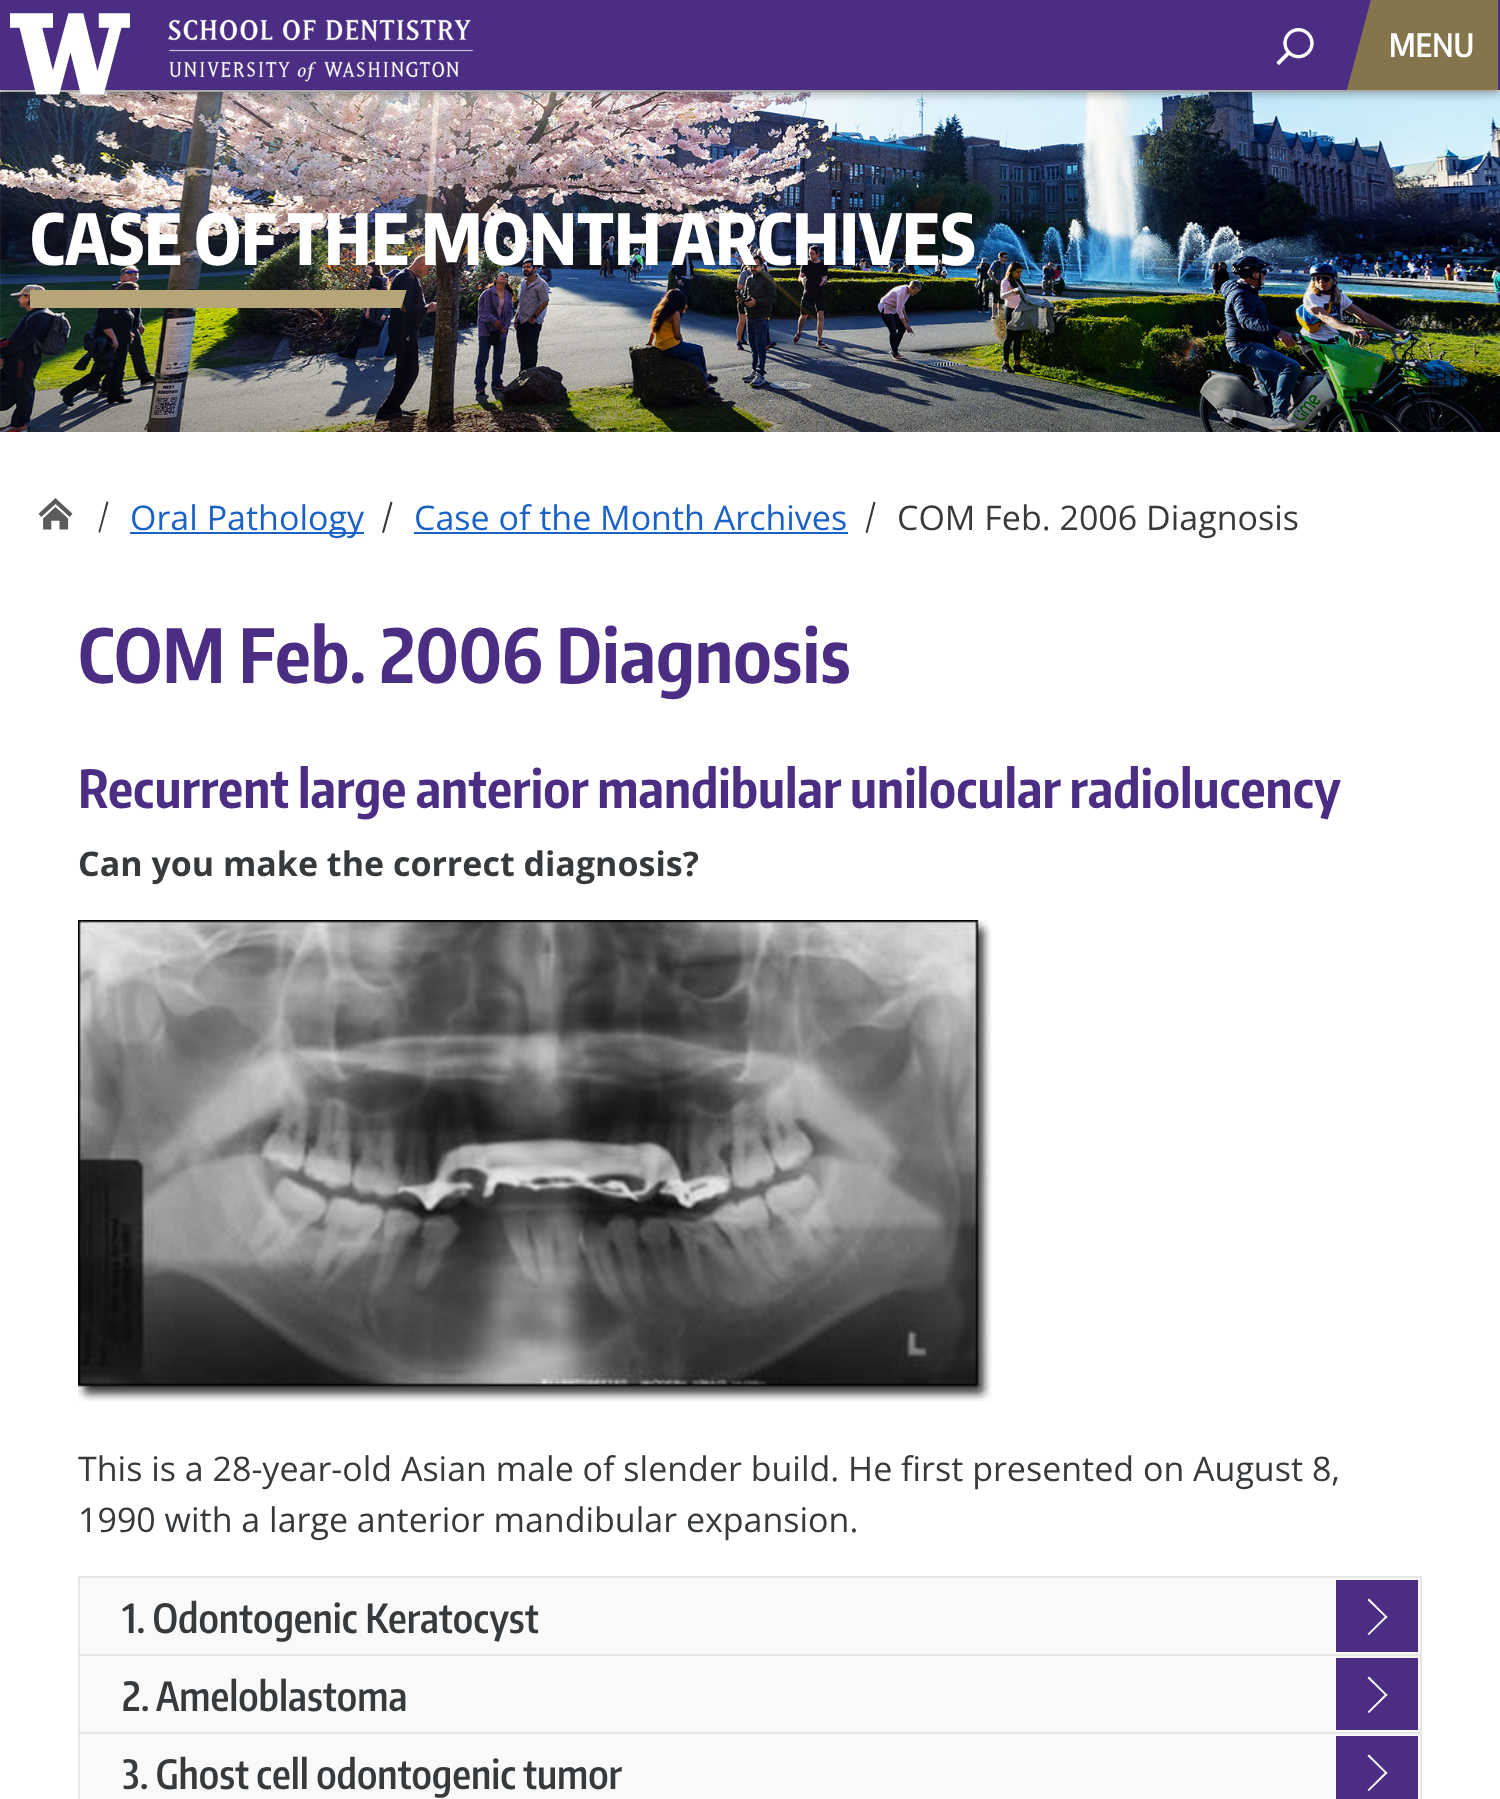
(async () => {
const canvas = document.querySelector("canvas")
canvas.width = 1500
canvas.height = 1799
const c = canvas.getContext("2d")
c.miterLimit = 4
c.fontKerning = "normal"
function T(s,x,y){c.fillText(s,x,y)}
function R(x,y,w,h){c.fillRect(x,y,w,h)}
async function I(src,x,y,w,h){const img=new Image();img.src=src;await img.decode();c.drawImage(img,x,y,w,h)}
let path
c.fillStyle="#fff"
R(0,0,1500,1799)
c.fillStyle="#dbdbdb"
path = new Path2D("M1500 90v2l-2-2z")
c.fill(path)
c.fillStyle="#00000024"
path = new Path2D("M1500 92h-1500l2-2h1496z")
c.fill(path)
path = new Path2D("M0 92v-2h2z")
c.fill(path)
await I("4.png",0,92,1500,340)
c.fillStyle="#0000004d"
c.filter="blur(5px)"
c.beginPath()
c.rect(0,4,1500,90)
c.fill()
c.filter="none"
c.fillStyle="#4b2e83"
R(0,0,1500,90)
await I("1.png",10,13,120,82)
await I("2.png",168,19,306,63)
await I("3.png",1276,28,38,38)
c.fillStyle="#85754d"
R(1377,0,121,90)
path = new Path2D("M1371 0h30l-24 90h-30z")
c.fill(path)
path = new Path2D("M1371 0h2l-24 90h-2z")
c.fill(path)
c.font="600 32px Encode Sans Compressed"
c.fillStyle="#fff"
T("MENU",1389,57)
c.font="800 70px Encode Sans Compressed"
T("CASE OF THE MONTH ARCHIVES",30,265)
c.save()
c.beginPath()
c.rect(30,290,1440,18)
c.clip()
c.fillStyle="#b7a57a"
path = new Path2D("M23 289h384l-6 20h-384z")
c.fill(path)
c.restore()
await I("5.png",38,498,35,32)
c.fillStyle="#373a3c"
path = new Path2D("M106.5 501.5l2 .5l-8.5 31l-1.5-1z")
c.fill(path)
c.fillStyle="#1a62c7"
R(130,532,234,2)
c.font="34px Open Sans"
T("Oral Pathology",130,530)
c.fillStyle="#373a3c"
path = new Path2D("M390.5 501.5l2 1l-8.5 30.5l-2-.5z")
c.fill(path)
c.fillStyle="#1a62c7"
T("Case of the Month Archives",414,530)
R(414,532,434,2)
c.fillStyle="#373a3c"
path = new Path2D("M873.5 501.5l2 1l-8 30.5l-2-.5z")
c.fill(path)
T("COM Feb. 2006 Diagnosis",897,530)
c.font="bold 74px Encode Sans Compressed"
c.fillStyle="#4b2e83"
T("COM Feb. 2006 Diagnosis",78,683)
c.font="bold 52px Encode Sans Compressed"
T("Recurrent large anterior mandibular unilocular radiolucency",78,808)
c.font="bold 34px Open Sans"
c.fillStyle="#373a3c"
T("Can you make the correct diagnosis?",78,876)
await I("6.png",78,920,914,482)
c.font="34px Open Sans"
T("This is a 28-year-old Asian male of slender build. He first presented on August 8,",78,1481)
T("1990 with a large anterior mandibular expansion.",78,1532)
c.fillStyle="#e6e6e7"
path = new Path2D("M78 1576h1344l-2 2h-1340z")
c.fill(path)
c.fillStyle="#373a3c1f"
path = new Path2D("M1422 1576v78h-2v-76z")
c.fill(path)
path = new Path2D("M78 1654v-78l2 2v76z")
c.fill(path)
c.fillStyle="#f9f9f9"
R(80,1578,1340,76)
c.font="600 40px Encode Sans Compressed"
c.fillStyle="#373a3c"
T("1. Odontogenic Keratocyst",122,1633)
c.fillStyle="#4b2e83"
R(1336,1580,82,72)
c.fillStyle="#fff"
path = new Path2D("M1367.5 1600l1.5-1.5l18.5 18.5l-1.5 1z")
c.fill(path)
path = new Path2D("M1367.5 1634l18.5-18.5l1.5 1.5l-18.5 18z")
c.fill(path)
c.fillStyle="#e6e6e7"
path = new Path2D("M78 1654h1344l-2 2h-1340z")
c.fill(path)
c.fillStyle="#373a3c1f"
path = new Path2D("M1422 1654v78h-2v-76z")
c.fill(path)
path = new Path2D("M78 1732v-78l2 2v76z")
c.fill(path)
c.fillStyle="#f9f9f9"
R(80,1656,1340,76)
c.fillStyle="#373a3c"
T("2. Ameloblastoma",122,1711)
c.fillStyle="#4b2e83"
R(1336,1658,82,72)
c.fillStyle="#fff"
path = new Path2D("M1367.5 1678l1.5-1.5l18.5 18.5l-1.5 1z")
c.fill(path)
path = new Path2D("M1367.5 1712l18.5-18.5l1.5 1.5l-18.5 18z")
c.fill(path)
c.fillStyle="#e6e6e7"
path = new Path2D("M78 1732h1344l-2 2h-1340z")
c.fill(path)
c.fillStyle="#373a3c1f"
path = new Path2D("M1422 1732v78h-2v-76z")
c.fill(path)
path = new Path2D("M78 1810v-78l2 2v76z")
c.fill(path)
c.fillStyle="#f9f9f9"
R(80,1734,1340,65)
c.fillStyle="#373a3c"
T("3. Ghost cell odontogenic tumor",122,1789)
c.fillStyle="#4b2e83"
R(1336,1736,82,63)
c.fillStyle="#fff"
path = new Path2D("M1367.5 1756l1.5-1.5l18.5 18.5l-1.5 1z")
c.fill(path)
path = new Path2D("M1367.5 1790l18.5-18.5l1.5 1.5l-18.5 18z")
c.fill(path)
})()
